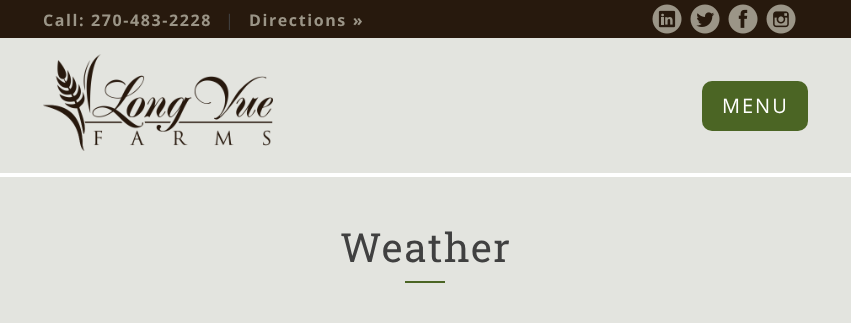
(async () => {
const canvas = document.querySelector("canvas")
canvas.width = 851
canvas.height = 333
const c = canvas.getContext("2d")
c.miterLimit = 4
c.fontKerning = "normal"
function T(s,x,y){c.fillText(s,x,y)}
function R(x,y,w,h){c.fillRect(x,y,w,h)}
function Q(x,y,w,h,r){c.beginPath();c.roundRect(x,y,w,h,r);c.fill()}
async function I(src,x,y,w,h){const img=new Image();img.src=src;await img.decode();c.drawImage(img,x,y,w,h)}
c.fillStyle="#fff"
R(0,0,851,333)
c.fillStyle="#e3e4df"
R(0,38,851,135)
c.fillStyle="#27190d"
R(0,0,851,38)
c.letterSpacing="1.6px"
c.font="bold 16px Open Sans"
c.fillStyle="#9b9587"
T("Call: 270-483-2228",43,26)
c.font="16px Open Sans"
c.fillStyle="#404040"
T("|",225,26)
c.font="bold 16px Open Sans"
c.fillStyle="#9b9587"
T("Directions »",249,26)
await I("1.png",652,4,30,30)
await I("2.png",690,4,30,30)
await I("3.png",728,4,30,30)
await I("4.png",766,4,30,30)
await I("5.png",43,54,230,97)
c.fillStyle="#4b6524"
Q(702,81,106,50,10)
c.letterSpacing="2px"
c.font="20px Open Sans"
c.fillStyle="#fff"
T("MENU",722,113)
c.fillStyle="#e3e4df"
R(0,177,851,146)
c.letterSpacing="1.6px"
c.font="40px Roboto Slab"
c.fillStyle="#404040"
T("Weather",340,262)
c.fillStyle="#4b6524"
R(405,281,40,2)
})()
